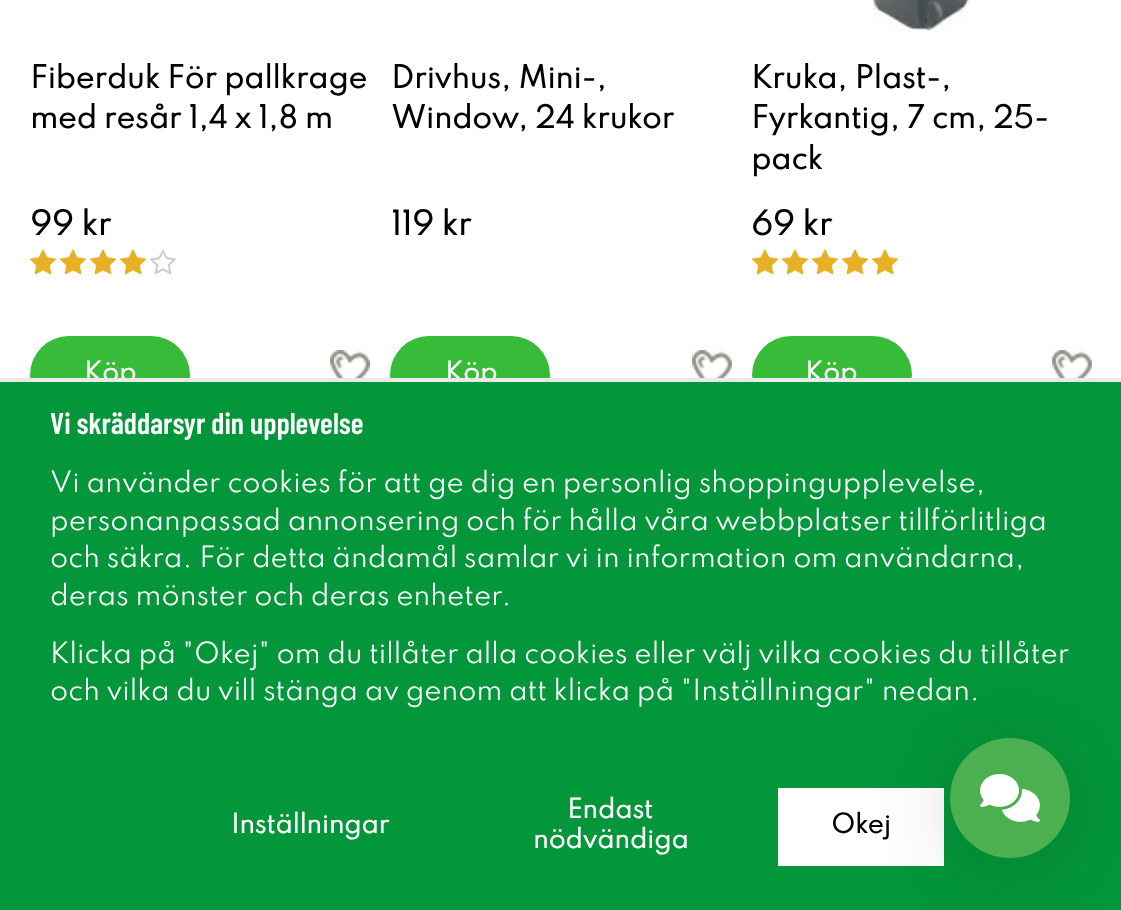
(async () => {
const canvas = document.querySelector("canvas")
canvas.width = 1121
canvas.height = 910
const c = canvas.getContext("2d")
c.miterLimit = 4
c.fontKerning = "normal"
function T(s,x,y){c.fillText(s,x,y)}
function R(x,y,w,h){c.fillRect(x,y,w,h)}
function Q(x,y,w,h,r){c.beginPath();c.roundRect(x,y,w,h,r);c.fill()}
async function I(src,x,y,w,h){const img=new Image();img.src=src;await img.decode();c.drawImage(img,x,y,w,h)}
c.fillStyle="#fff"
R(0,0,1121,910)
c.font="bold 28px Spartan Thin"
c.fillStyle="#000"
T("Fiberduk För pallkrage",30,88)
T("med resår 1,4 x 1,8 m",30,128)
c.font="bold 30px Spartan Thin"
T("99 kr",30,235)
await I("1.png",30,249,26,26)
await I("1.png",60,249,26,26)
await I("1.png",90,249,26,26)
await I("1.png",120,249,26,26)
await I("2.png",150,249,26,26)
c.fillStyle="#38bb39"
Q(30,336,160,78,39)
c.font="bold 24px Spartan Thin"
c.fillStyle="#fff"
T("Köp",84,381)
await I("3.png",330,350,40,28)
c.font="bold 28px Spartan Thin"
c.fillStyle="#000"
T("Drivhus, Mini-,",391,88)
T("Window, 24 krukor",391,128)
c.font="bold 30px Spartan Thin"
T("119 kr",391,235)
c.fillStyle="#38bb39"
Q(390,336,160,78,39)
c.font="bold 24px Spartan Thin"
c.fillStyle="#fff"
T("Köp",445,381)
await I("3.png",692,350,40,28)
await I("4.png",872,0,98,30)
c.font="bold 28px Spartan Thin"
c.fillStyle="#000"
T("Kruka, Plast-,",751,88)
T("Fyrkantig, 7 cm, 25-",751,128)
T("pack",751,169)
c.font="bold 30px Spartan Thin"
T("69 kr",751,235)
await I("1.png",752,249,26,26)
await I("1.png",782,249,26,26)
await I("1.png",812,249,26,26)
await I("1.png",842,249,26,26)
await I("1.png",872,249,26,26)
c.fillStyle="#38bb39"
Q(752,336,160,78,39)
c.font="bold 24px Spartan Thin"
c.fillStyle="#fff"
T("Köp",805,381)
await I("3.png",1052,350,40,28)
c.fillStyle="#04963a"
R(0,382,1121,528)
c.fillStyle="#e9e9e9"
R(0,378,1121,4)
c.font="600 30px Barlow Condensed"
c.fillStyle="#fff"
T("Vi skräddarsyr din upplevelse",50,434)
c.font="100 26px Spartan Thin"
T("Vi använder cookies för att ge dig en personlig shoppingupplevelse,",50,492)
T("personanpassad annonsering och för hålla våra webbplatser tillförlitliga",50,530)
T("och säkra. För detta ändamål samlar vi in information om användarna,",50,567)
T("deras mönster och deras enheter.",50,605)
T("Klicka på \"Okej\" om du tillåter alla cookies eller välj vilka cookies du tillåter",50,663)
T("och vilka du vill stänga av genom att klicka på \"Inställningar\" nedan.",50,700)
c.font="bold 24px Spartan Thin"
T("Inställningar",231,833)
T("Endast",567,818)
T("nödvändiga",533,848)
R(778,788,166,78)
c.fillStyle="#000"
T("Okej",831,833)
c.fillStyle="#00000029"
c.filter="blur(40px)"
c.beginPath()
c.roundRect(950,748,120,120,60)
c.fill()
c.filter="none"
c.fillStyle="#4caf50"
c.beginPath()
c.arc(1010,798,60,0,7)
c.fill()
await I("5.png",980,774,60,48)
})()
